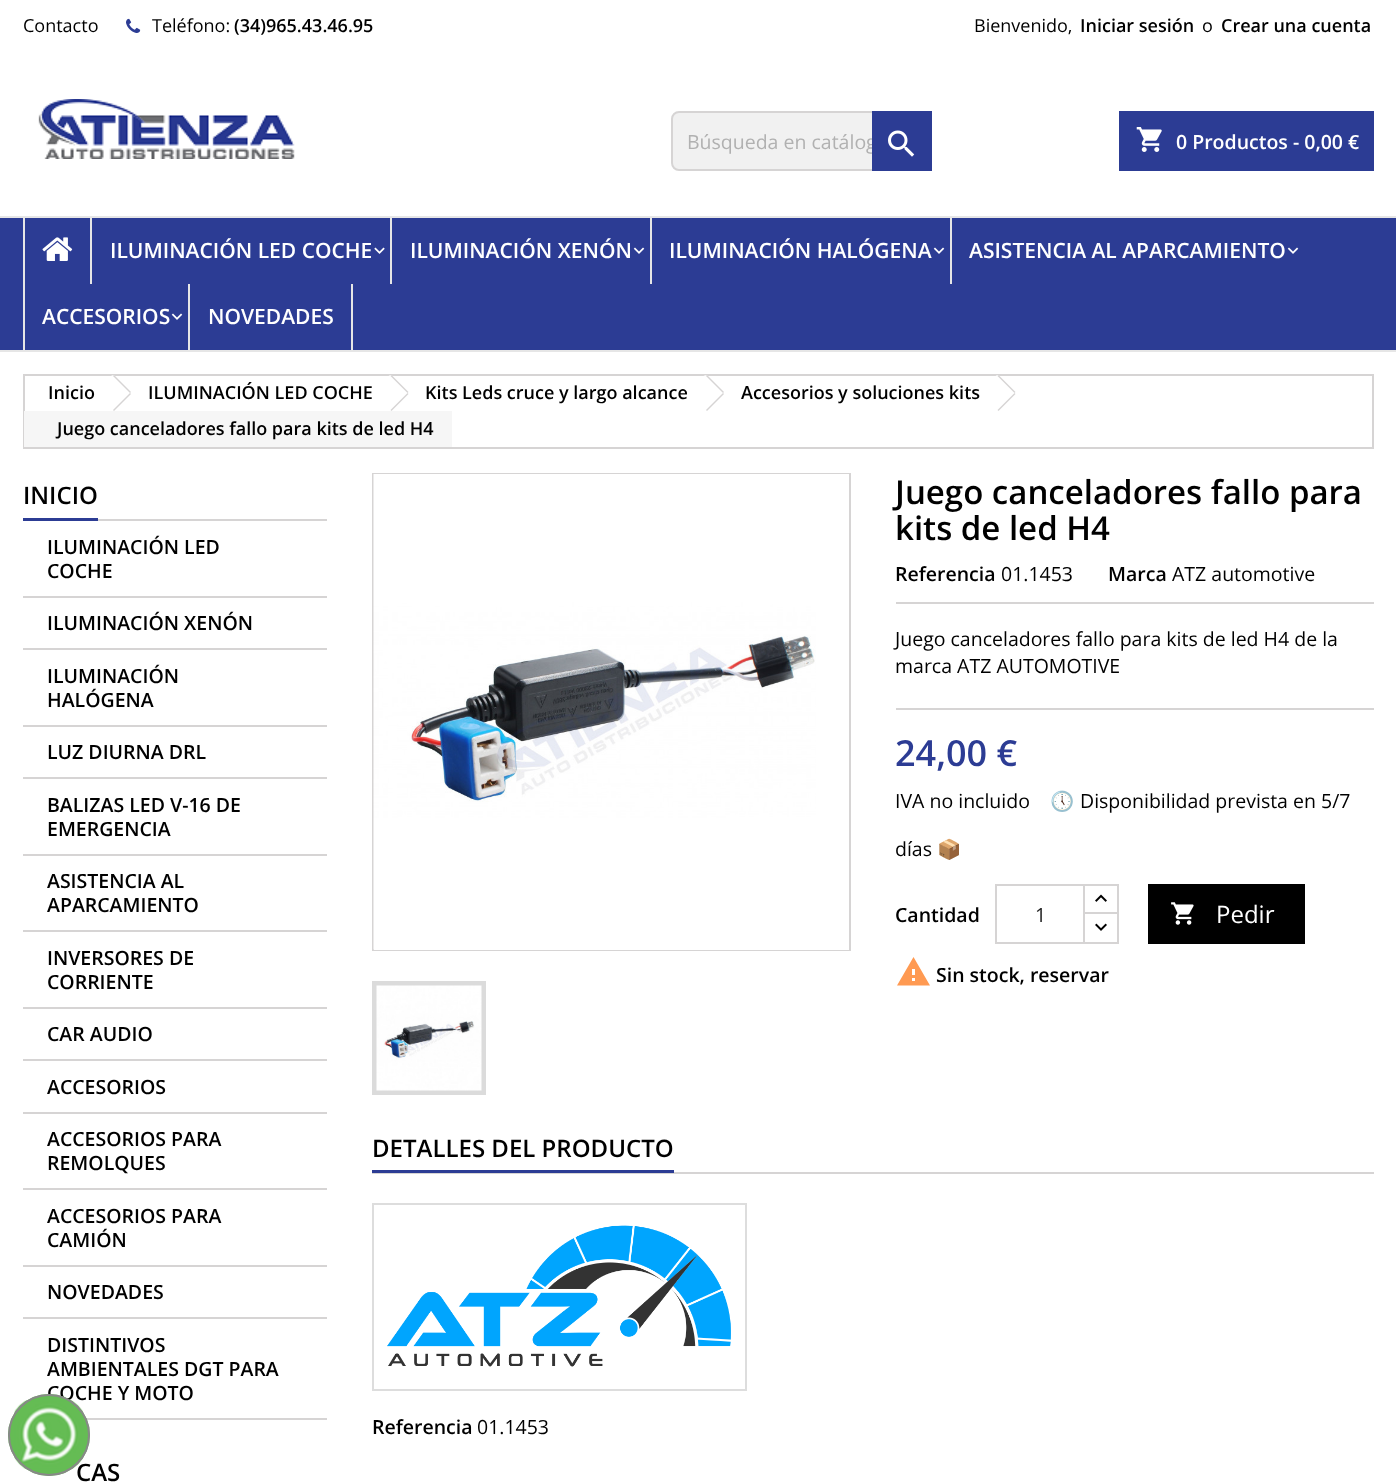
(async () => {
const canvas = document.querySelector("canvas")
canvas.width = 1396
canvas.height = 1483
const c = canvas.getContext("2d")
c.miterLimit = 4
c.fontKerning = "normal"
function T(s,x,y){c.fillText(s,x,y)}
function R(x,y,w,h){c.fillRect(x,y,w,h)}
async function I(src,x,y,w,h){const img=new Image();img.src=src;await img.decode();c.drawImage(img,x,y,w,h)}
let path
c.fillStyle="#fff"
R(0,0,1396,1483)
c.font="18px Open Sans"
c.fillStyle="#000"
T("Contacto",23,32)
await I("1.png",126,18,15,15)
T("Teléfono:",152,32)
c.font="600 18px Open Sans"
T("(34)965.43.46.95",234,32)
c.font="18px Open Sans"
T("Bienvenido,",974,32)
c.font="600 18px Open Sans"
T("Iniciar sesión",1080,32)
c.font="18px Open Sans"
T("o",1202,32)
c.font="600 18px Open Sans"
T("Crear una cuenta",1221,32)
await I("2.png",38,99,257,60)
c.fillStyle="#f1f1f1"
c.beginPath()
c.roundRect(672,112,259,58,7)
c.fill()
c.strokeStyle="#d6d4d4"
c.lineWidth=2
c.stroke()
c.font="19.5px Open Sans"
c.fillStyle="#b1b1b1"
T("Búsqueda en catálog",687,149)
c.fillStyle="#2c3c94"
R(872,111,60,60)
await I("3.png",888,130,27,27)
R(1119,111,255,60)
await I("4.png",1136,127,26,25)
c.font="600 19.5px Open Sans"
c.fillStyle="#fff"
T("0 Productos - 0,00 €",1176,149)
c.fillStyle="#2c3c94"
R(0,218,1396,132)
c.fillStyle="#e6e6e6"
R(0,216,1396,2)
R(0,350,1396,2)
R(23,218,2,132)
await I("5.png",42,237,31,24)
R(90,218,2,66)
c.font="600 21px Open Sans"
c.fillStyle="#fff"
T("ILUMINACIÓN LED COCHE",110,258)
await I("6.png",374,247,11,7)
c.fillStyle="#e6e6e6"
R(390,218,2,66)
c.fillStyle="#fff"
T("ILUMINACIÓN XENÓN",410,258)
await I("7.png",633,247,12,7)
c.fillStyle="#e6e6e6"
R(650,218,2,66)
c.fillStyle="#fff"
T("ILUMINACIÓN HALÓGENA",669,258)
await I("7.png",933,247,12,7)
c.fillStyle="#e6e6e6"
R(950,218,2,66)
c.fillStyle="#fff"
T("ASISTENCIA AL APARCAMIENTO",969,258)
await I("7.png",1287,247,12,7)
T("ACCESORIOS",42,324)
await I("7.png",171,313,12,7)
c.fillStyle="#e6e6e6"
R(351,284,2,66)
R(188,284,2,66)
c.fillStyle="#fff"
T("NOVEDADES",208,324)
c.strokeRect(24,375,1349,73)
c.font="600 18px Open Sans"
c.fillStyle="#000"
T("Inicio",48,399)
c.fillStyle="#fff"
path = new Path2D("M115 376l15 15c1 1 1 3 0 4l-15 15c-1 1-3 1-4 0l-15-15c-1-1-1-3 0-4l15-15c1-1 3-1 4 0z")
c.fill(path)
c.fillStyle="#d6d4d4"
path = new Path2D("M114 375l17 17l-1 1l-17-17zm16 18l1 1l-17 17l-1-1z")
c.fill(path)
c.fillStyle="#000"
T("ILUMINACIÓN LED COCHE",148,399)
c.fillStyle="#fff"
path = new Path2D("M392.5 376l15 15c1 1 1 3 0 4l-15 15c-1 1-3 1-4 0l-15-15c-1-1-1-3 0-4l15-15c1-1 3-1 4 0z")
c.fill(path)
c.fillStyle="#d6d4d4"
path = new Path2D("M391.5 375l17 17l-1 1l-17-17zm16 18l1 1l-17 17l-1-1z")
c.fill(path)
c.fillStyle="#000"
T("Kits Leds cruce y largo alcance",425,399)
c.fillStyle="#fff"
path = new Path2D("M708 376l15 15c1 1 1 3 0 4l-15 15c-1 1-3 1-4.5 0l-14.5-15c-1.5-1-1.5-3 0-4l14.5-15c1.5-1 3.5-1 4.5 0z")
c.fill(path)
c.fillStyle="#d6d4d4"
path = new Path2D("M707 375l17 17l-1 1l-17-17zm16 18l1 1l-17 17l-1-1z")
c.fill(path)
c.fillStyle="#000"
T("Accesorios y soluciones kits",741,399)
c.fillStyle="#fff"
path = new Path2D("M999.5 376l15 15c1 1 1 3 0 4l-15 15c-1 1-3 1-4 0l-15-15c-1-1-1-3 0-4l15-15c1-1 3-1 4 0z")
c.fill(path)
c.fillStyle="#d6d4d4"
path = new Path2D("M998.5 375l17 17l-1 1l-17-17zm16 18l1 1l-17 17l-1-1z")
c.fill(path)
c.fillStyle="#f6f6f6"
R(24,411,428,36)
c.fillStyle="#000"
T("Juego canceladores fallo para kits de led H4",57,435)
c.fillStyle="#d6d4d4"
R(98,519,229,2)
c.fillStyle="#2c3c94"
R(23,518,75,3)
c.font="600 24px Open Sans"
c.fillStyle="#000"
T("INICIO",23,504)
c.fillStyle="#d6d4d4"
R(23,596,304,2)
c.font="600 19.5px Open Sans"
c.fillStyle="#000"
T("ILUMINACIÓN LED",47,554)
T("COCHE",47,578)
c.fillStyle="#d6d4d4"
R(23,648,304,2)
c.fillStyle="#000"
T("ILUMINACIÓN XENÓN",47,630)
c.fillStyle="#d6d4d4"
R(23,725,304,2)
c.fillStyle="#000"
T("ILUMINACIÓN",47,683)
T("HALÓGENA",47,707)
c.fillStyle="#d6d4d4"
R(23,777,304,2)
c.fillStyle="#000"
T("LUZ DIURNA DRL",47,759)
c.fillStyle="#d6d4d4"
R(23,854,304,2)
c.fillStyle="#000"
T("BALIZAS LED V-16 DE",47,812)
T("EMERGENCIA",47,836)
c.fillStyle="#d6d4d4"
R(23,930,304,2)
c.fillStyle="#000"
T("ASISTENCIA AL",47,888)
T("APARCAMIENTO",47,912)
c.fillStyle="#d6d4d4"
R(23,1007,304,2)
c.fillStyle="#000"
T("INVERSORES DE",47,965)
T("CORRIENTE",47,989)
c.fillStyle="#d6d4d4"
R(23,1059,304,2)
c.fillStyle="#000"
T("CAR AUDIO",47,1041)
c.fillStyle="#d6d4d4"
R(23,1112,304,2)
c.fillStyle="#000"
T("ACCESORIOS",47,1094)
c.fillStyle="#d6d4d4"
R(23,1188,304,2)
c.fillStyle="#000"
T("ACCESORIOS PARA",47,1146)
T("REMOLQUES",47,1170)
c.fillStyle="#d6d4d4"
R(23,1265,304,2)
c.fillStyle="#000"
T("ACCESORIOS PARA",47,1223)
T("CAMIÓN",47,1247)
c.fillStyle="#d6d4d4"
R(23,1317,304,2)
c.fillStyle="#000"
T("NOVEDADES",47,1299)
c.fillStyle="#d6d4d4"
R(86,1418,241,2)
c.fillStyle="#000"
T("DISTINTIVOS",47,1352)
T("AMBIENTALES DGT PARA",47,1376)
T("COCHE Y MOTO",47,1400)
c.font="600 24px Open Sans"
T("CAS",76,1481)
c.strokeRect(373,474,477,476)
c.fillStyle="#fff"
R(374,474,475,476)
await I("8.png",373,474,443,476)
c.strokeStyle="#dbdbdb"
c.lineWidth=5
c.strokeRect(374.5,983.5,109,109)
await I("9.png",376,985,106,106)
c.font="600 33px Open Sans"
c.fillStyle="#000"
T("Juego canceladores fallo para",895,504)
T("kits de led H4",895,540)
c.font="600 19.5px Open Sans"
T("Referencia",895,581)
c.font="19.5px Open Sans"
T("01.1453",1001,581)
c.font="600 19.5px Open Sans"
T("Marca",1108,581)
c.font="19.5px Open Sans"
T("ATZ automotive",1172,581)
c.fillStyle="#d6d4d4"
R(896,602,478,2)
c.fillStyle="#000"
T("Juego canceladores fallo para kits de led H4 de la",895,646)
T("marca ATZ AUTOMOTIVE",895,673)
c.fillStyle="#d6d4d4"
R(896,708,478,2)
c.font="600 36px Open Sans"
c.fillStyle="#2c3c94"
T("24,00 €",895,766)
c.font="19.5px Open Sans"
c.fillStyle="#000"
T("IVA no incluido",895,808)
c.font="19.5px Noto Color Emoji"
T("🕔",1050,808)
c.font="19.5px Open Sans"
T("Disponibilidad prevista en 5/7",1080,808)
T("días",895,856)
c.font="19.5px Noto Color Emoji"
T("📦",937,856)
c.font="600 19.5px Open Sans"
T("Cantidad",895,922)
c.strokeStyle="#d6d4d4"
c.lineWidth=2
c.strokeRect(1084,885,34,29)
c.fillStyle="#fff"
R(1085,914,32,1)
c.strokeRect(1084,913,34,30)
c.strokeRect(996,885,88,58)
c.font="19.5px Open Sans"
c.fillStyle="#232323"
T("1",1035,922)
await I("10.png",1095,894,12,8)
await I("11.png",1095,923,12,8)
c.fillStyle="#000"
R(1148,884,157,60)
await I("12.png",1171,902,23,23)
c.font="24px Open Sans"
c.fillStyle="#fff"
T("Pedir",1216,923)
c.fillStyle="#ff9a52"
path = new Path2D("M915 975v-6h-3v6zm0 6v-3h-3v3zm-18 4.5l16.5-28.5l16.5 28.5z")
c.fill(path)
c.font="600 19.5px Open Sans"
c.fillStyle="#000"
T("Sin stock, reservar",936,982)
c.fillStyle="#d6d4d4"
R(372,1172,1002,2)
c.fillStyle="#2c3c94"
R(372,1170,302,3)
c.font="600 24px Open Sans"
c.fillStyle="#000"
T("DETALLES DEL PRODUCTO",372,1157)
c.strokeStyle="#ddd"
c.strokeRect(373,1204,373,186)
await I("13.png",387,1225,344,142)
c.font="600 19.5px Open Sans"
T("Referencia",372,1434)
c.font="19.5px Open Sans"
T("01.1453",477,1434)
c.fillStyle="#65bc54"
c.beginPath()
c.arc(49,1435,41,0,7)
c.fill()
await I("14.png",14,1400,69,69)
c.beginPath()
c.arc(49,1435,40,0,7)
c.strokeStyle="#888"
c.stroke()
})()
